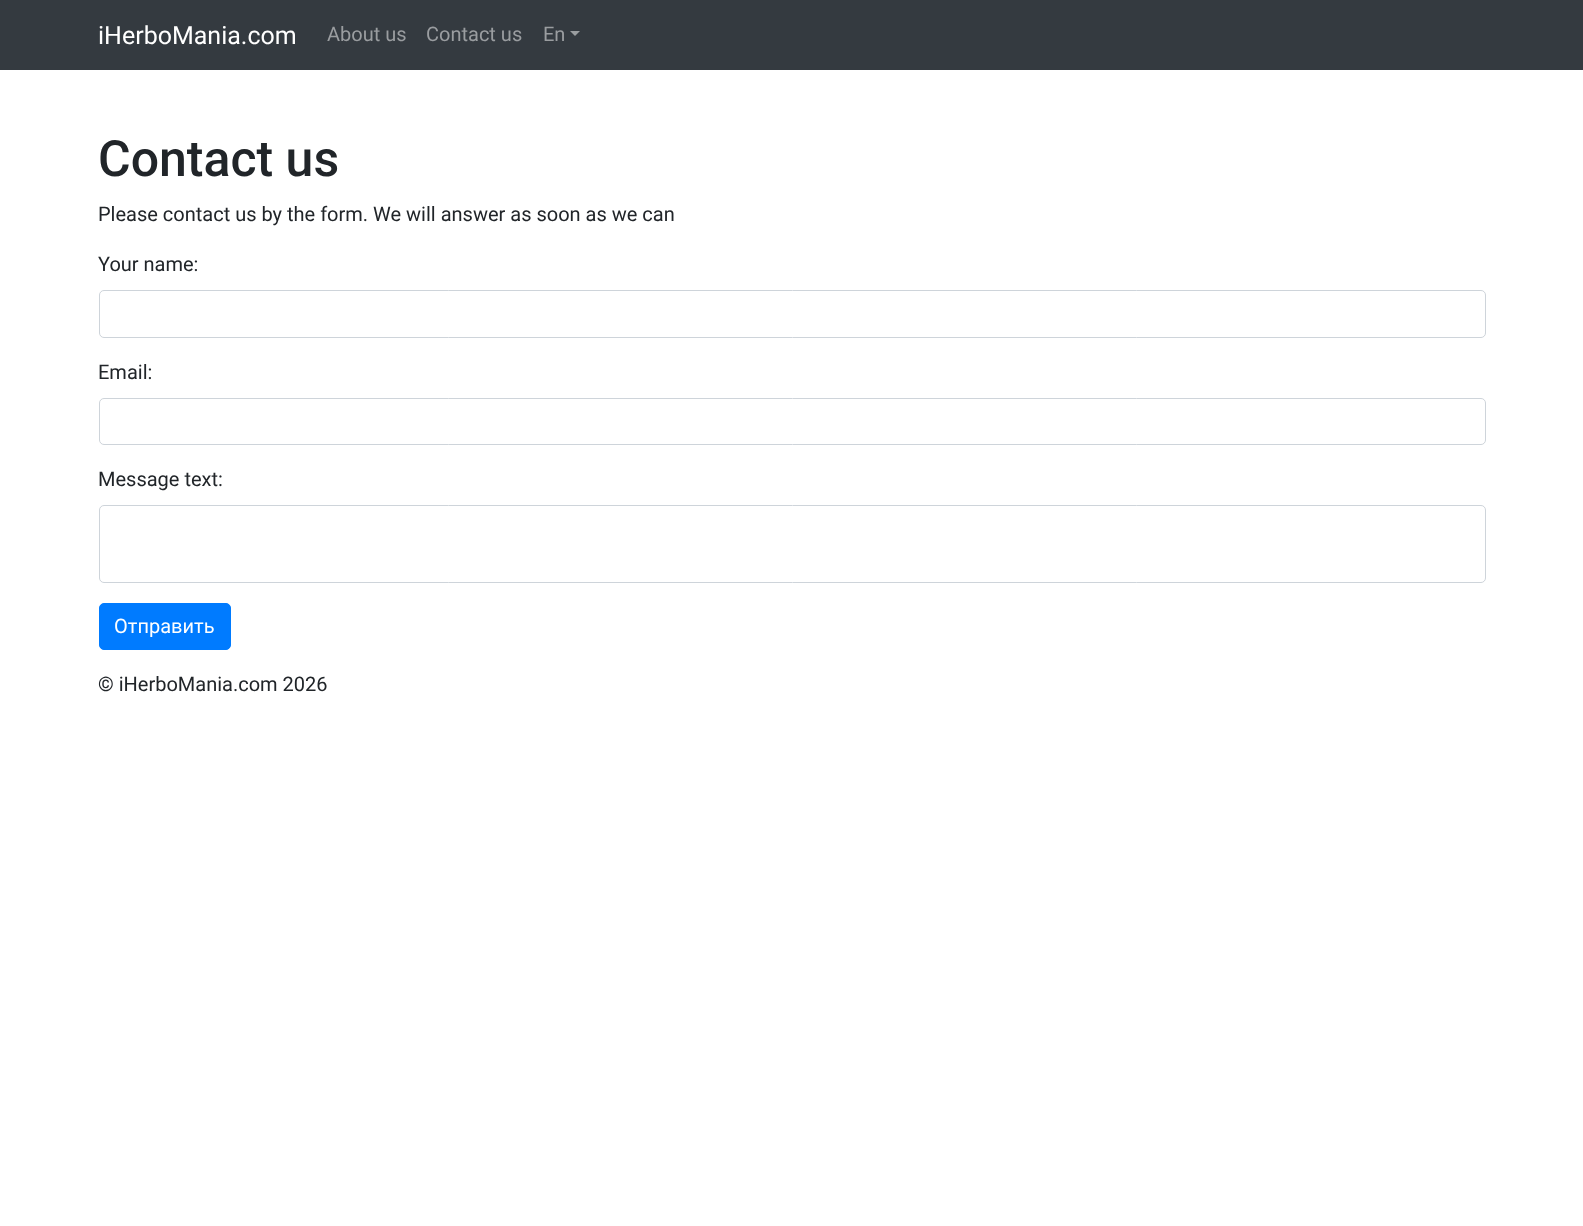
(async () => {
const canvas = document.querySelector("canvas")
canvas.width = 1583
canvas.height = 1226
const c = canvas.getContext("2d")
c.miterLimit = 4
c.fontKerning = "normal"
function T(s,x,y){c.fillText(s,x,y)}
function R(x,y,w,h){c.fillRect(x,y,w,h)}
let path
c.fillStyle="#fff"
R(0,0,1583,1226)
c.fillStyle="#343a40"
R(0,0,1583,70)
c.font="25px Roboto"
c.fillStyle="#fff"
T("iHerboMania.com",98,44)
c.font="20px Roboto"
c.fillStyle="#9a9da0"
T("About us",327,41)
T("Contact us",426,41)
T("En",543,41)
path = new Path2D("M570 31h10l-5 5z")
c.fill(path)
c.font="500 50px Roboto"
c.fillStyle="#212529"
T("Contact us",98,176)
c.font="20px Roboto"
T("Please contact us by the form. We will answer as soon as we can",98,221)
T("Your name:",98,271)
c.beginPath()
c.roundRect(99.5,290.5,1386,47,4.5)
c.strokeStyle="#ced4da"
c.stroke()
T("Email:",98,379)
c.beginPath()
c.roundRect(99.5,398.5,1386,46,4.5)
c.stroke()
T("Message text:",98,486)
c.beginPath()
c.roundRect(99.5,505.5,1386,77,4.5)
c.stroke()
c.fillStyle="#007bff"
c.beginPath()
c.roundRect(99.5,603.5,131,46,4.5)
c.fill()
c.strokeStyle="#007bff"
c.stroke()
c.fillStyle="#fff"
T("Отправить",114,633)
c.fillStyle="#212529"
T("© iHerboMania.com 2026",98,691)
})()
